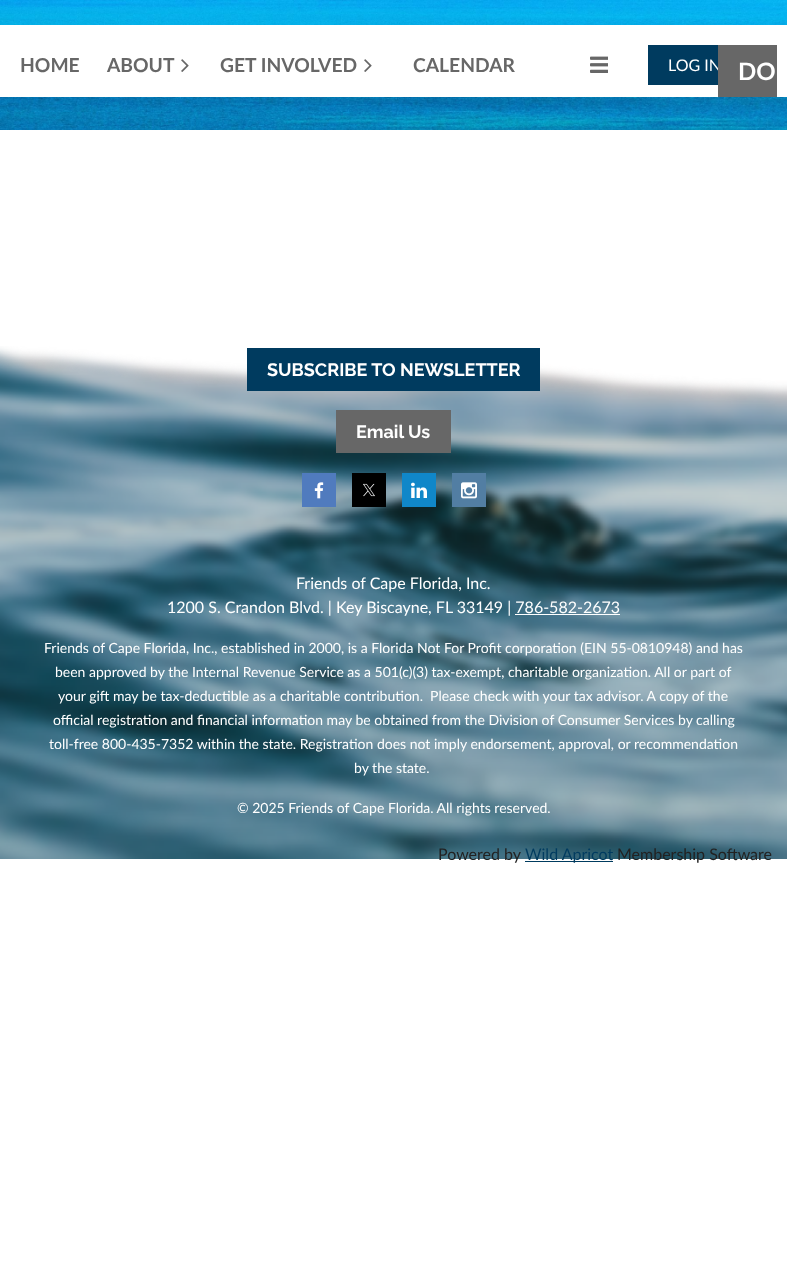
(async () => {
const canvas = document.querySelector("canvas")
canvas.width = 787
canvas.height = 1286
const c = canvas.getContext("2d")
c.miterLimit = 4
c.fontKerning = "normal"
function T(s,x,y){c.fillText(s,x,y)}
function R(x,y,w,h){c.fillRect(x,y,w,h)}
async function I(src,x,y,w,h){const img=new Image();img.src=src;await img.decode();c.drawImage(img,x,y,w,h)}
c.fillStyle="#fff"
R(0,0,787,1286)
await I("1.png",0,0,787,130)
R(0,25,787,72)
c.font="bold 19.25px Lato"
c.fillStyle="#676767"
T("HOME",20,72)
T("ABOUT",107,72)
await I("2.png",181,59,8,13)
T("GET INVOLVED",220,72)
await I("2.png",364,59,8,13)
T("CALENDAR",413,72)
await I("3.png",590,56,18,17)
c.fillStyle="#003b5f"
R(648,45,70,40)
c.font="16px Lato"
c.fillStyle="#fff"
T("LOG IN",668,71)
c.fillStyle="#676767"
R(718,45,59,52)
c.font="bold 24px Lato"
c.fillStyle="#fff"
T("DO",738,80)
await I("4.png",0,346,787,513)
c.fillStyle="#003b5f"
R(247,348,293,43)
c.font="bold 18px Raleway"
c.fillStyle="#fff"
T("SUBSCRIBE TO NEWSLETTER",267,376)
c.fillStyle="#676767"
R(336,410,115,43)
c.fillStyle="#fff"
T("Email Us",356,438)
c.fillStyle="#507bbe"
R(302,473,34,34)
await I("5.png",314,482,10,17)
c.fillStyle="#000"
R(352,473,34,34)
await I("6.png",363,483,12,14)
c.fillStyle="#1087c9"
R(402,473,34,34)
await I("7.png",411,482,16,16)
c.fillStyle="#527ea3"
R(452,473,34,34)
await I("8.png",461,482,16,17)
c.font="16px Lato"
c.fillStyle="#fff"
T("Friends of Cape Florida, Inc.",296,589)
T("1200 S. Crandon Blvd. | Key Biscayne, FL 33149 | 786-582-2673",167,613)
R(515,614,105,1)
c.font="14px Lato"
T("Friends of Cape Florida, Inc., established in 2000, is a Florida Not For Profit corporation (EIN 55-0810948) and has",44,653)
T("been approved by the Internal Revenue Service as a 501(c)(3) tax-exempt, charitable organization. All or part of",55,677)
T("your gift may be tax-deductible as a charitable contribution.  Please check with your tax advisor. A copy of the",58,701)
T("official registration and financial information may be obtained from the Division of Consumer Services by calling",53,725)
T("toll-free 800-435-7352 within the state. Registration does not imply endorsement, approval, or recommendation",49,749)
T("by the state.",354,773)
T("© 2025 Friends of Cape Florida. All rights reserved.",237,813)
c.font="16px Lato"
c.fillStyle="#222"
T("Powered by",438,860)
c.fillStyle="#003b5f"
R(525,861,88,1)
T("Wild Apricot",525,860)
c.fillStyle="#222"
T("Membership Software",617,860)
})()
